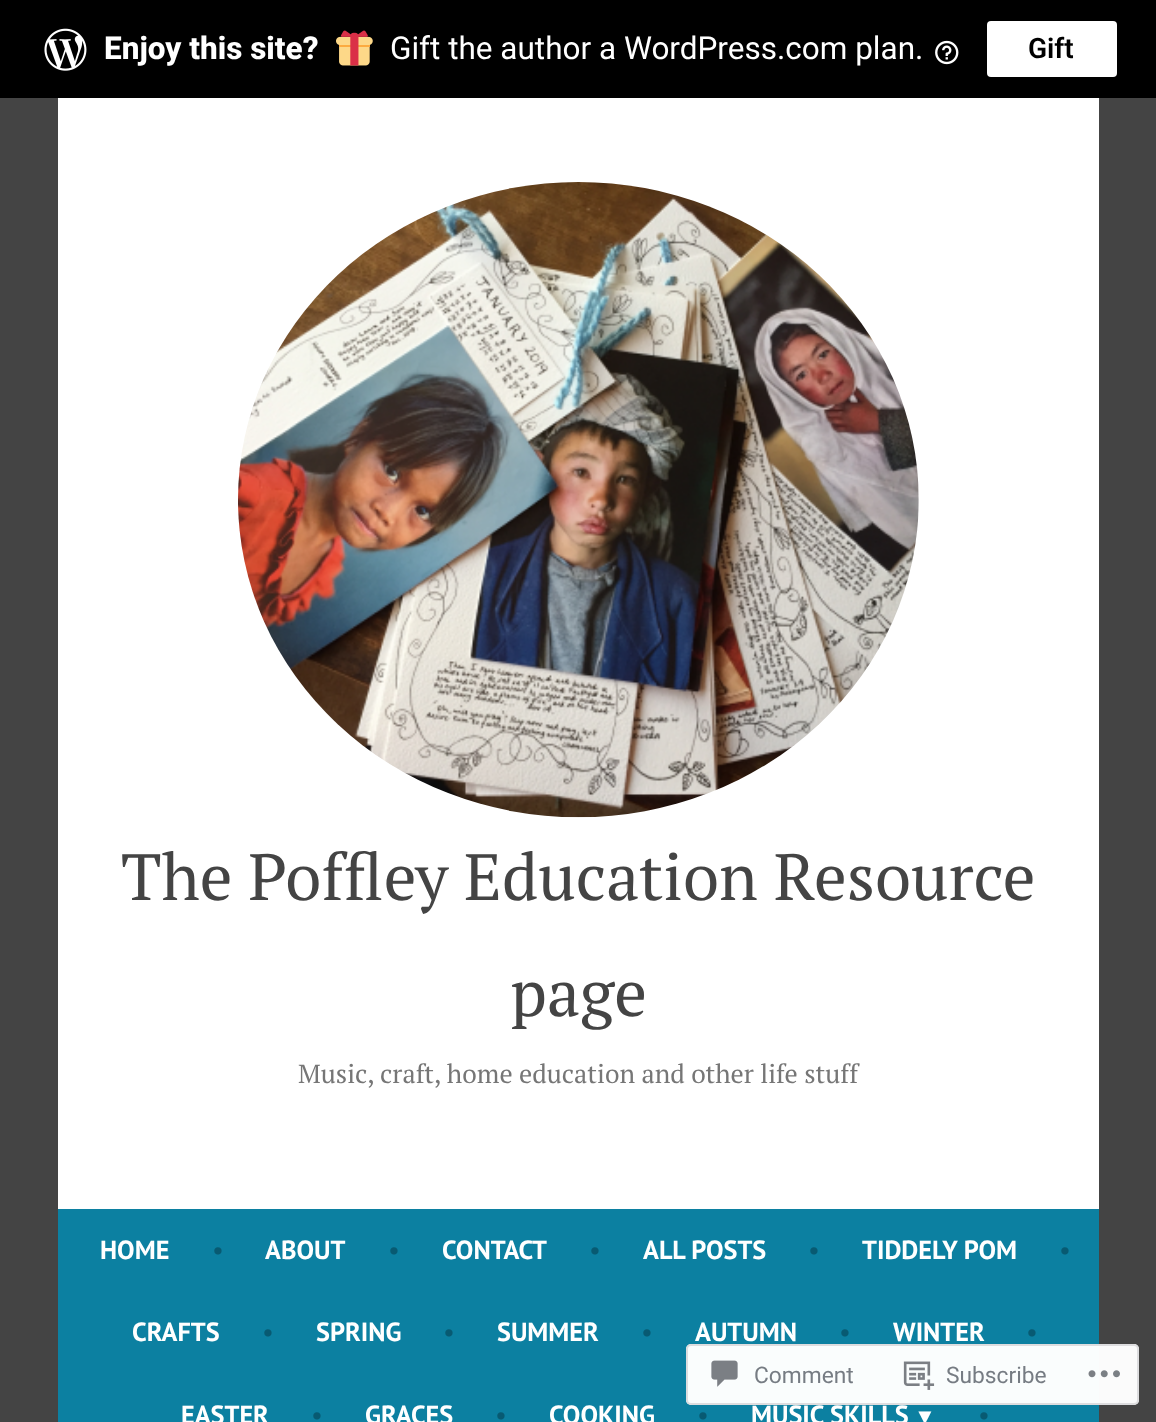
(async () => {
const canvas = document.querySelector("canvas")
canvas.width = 1156
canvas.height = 1422
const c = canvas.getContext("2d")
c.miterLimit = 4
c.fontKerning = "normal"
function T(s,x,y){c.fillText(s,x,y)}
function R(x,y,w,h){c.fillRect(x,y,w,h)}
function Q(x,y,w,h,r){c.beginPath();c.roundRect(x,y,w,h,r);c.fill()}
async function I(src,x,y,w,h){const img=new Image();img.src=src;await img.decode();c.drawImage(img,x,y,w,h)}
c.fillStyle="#444"
R(0,0,1156,1422)
c.fillStyle="#000"
R(0,0,1156,98)
await I("1.png",44,28,43,43)
c.font="800 31.5px Roboto"
c.fillStyle="#fff"
T("Enjoy this site?",104,59)
await I("2.png",336,30,37,36)
c.font="31.5px Roboto"
T("Gift the author a WordPress.com plan.",390,59)
await I("3.png",935,40,24,25)
Q(987,21,130,56,4)
c.font="600 28px Roboto"
c.fillStyle="#000"
T("Gift",1028,58)
c.fillStyle="#fff"
R(58,98,1041,1111)
await I("4.png",238,182,681,636)
c.font="65.25px PT Serif"
c.fillStyle="#444"
T("The Poffley Education Resource",121,900)
T("page",510,1016)
c.font="26.25px PT Serif"
c.fillStyle="#767676"
T("Music, craft, home education and other life stuff",298,1083)
c.fillStyle="#0c80a1"
R(58,1209,1041,213)
c.font="bold 26.25px PT Sans"
c.fillStyle="#fff"
T("HOME",100,1259)
c.font="26.25px PT Sans"
c.fillStyle="#085a72"
T("•",212,1259)
c.font="bold 26.25px PT Sans"
c.fillStyle="#fff"
T("ABOUT",265,1259)
c.font="26.25px PT Sans"
c.fillStyle="#085a72"
T("•",388,1259)
c.font="bold 26.25px PT Sans"
c.fillStyle="#fff"
T("CONTACT",442,1259)
c.font="26.25px PT Sans"
c.fillStyle="#085a72"
T("•",589,1259)
c.font="bold 26.25px PT Sans"
c.fillStyle="#fff"
T("ALL POSTS",643,1259)
c.font="26.25px PT Sans"
c.fillStyle="#085a72"
T("•",808,1259)
c.font="bold 26.25px PT Sans"
c.fillStyle="#fff"
T("TIDDELY POM",862,1259)
c.font="26.25px PT Sans"
c.fillStyle="#085a72"
T("•",1059,1259)
c.font="bold 26.25px PT Sans"
c.fillStyle="#fff"
T("CRAFTS",132,1341)
c.font="26.25px PT Sans"
c.fillStyle="#085a72"
T("•",262,1341)
c.font="bold 26.25px PT Sans"
c.fillStyle="#fff"
T("SPRING",316,1341)
c.font="26.25px PT Sans"
c.fillStyle="#085a72"
T("•",443,1341)
c.font="bold 26.25px PT Sans"
c.fillStyle="#fff"
T("SUMMER",497,1341)
c.font="26.25px PT Sans"
c.fillStyle="#085a72"
T("•",641,1341)
c.font="bold 26.25px PT Sans"
c.fillStyle="#fff"
T("AUTUMN",695,1341)
c.font="26.25px PT Sans"
c.fillStyle="#085a72"
T("•",839,1341)
c.font="bold 26.25px PT Sans"
c.fillStyle="#fff"
T("WINTER",893,1341)
c.font="26.25px PT Sans"
c.fillStyle="#085a72"
T("•",1026,1341)
c.font="bold 26.25px PT Sans"
c.fillStyle="#fff"
T("EASTER",181,1424)
c.font="26.25px PT Sans"
c.fillStyle="#085a72"
T("•",311,1424)
c.font="bold 26.25px PT Sans"
c.fillStyle="#fff"
T("GRACES",365,1424)
c.font="26.25px PT Sans"
c.fillStyle="#085a72"
T("•",495,1424)
c.font="bold 26.25px PT Sans"
c.fillStyle="#fff"
T("COOKING",549,1424)
c.font="26.25px PT Sans"
c.fillStyle="#085a72"
T("•",697,1424)
c.font="bold 26.25px PT Sans"
c.fillStyle="#fff"
T("MUSIC SKILLS",751,1424)
c.font="bold 22px Liberation Sans"
T("▼",914,1424)
c.font="26.25px PT Sans"
c.fillStyle="#085a72"
T("•",978,1424)
c.fillStyle="#fffffffa"
Q(686,1344,453,61,5)
c.beginPath()
c.roundRect(687,1345,451,59,4)
c.strokeStyle="#dcdcdefa"
c.lineWidth=2
c.stroke()
await I("5.png",711,1360,27,27)
c.font="22.75px Roboto"
c.fillStyle="#767c83"
T("Comment",754,1383)
await I("6.png",903,1361,32,29)
T("Subscribe",946,1383)
await I("7.png",1088,1370,32,8)
})()
